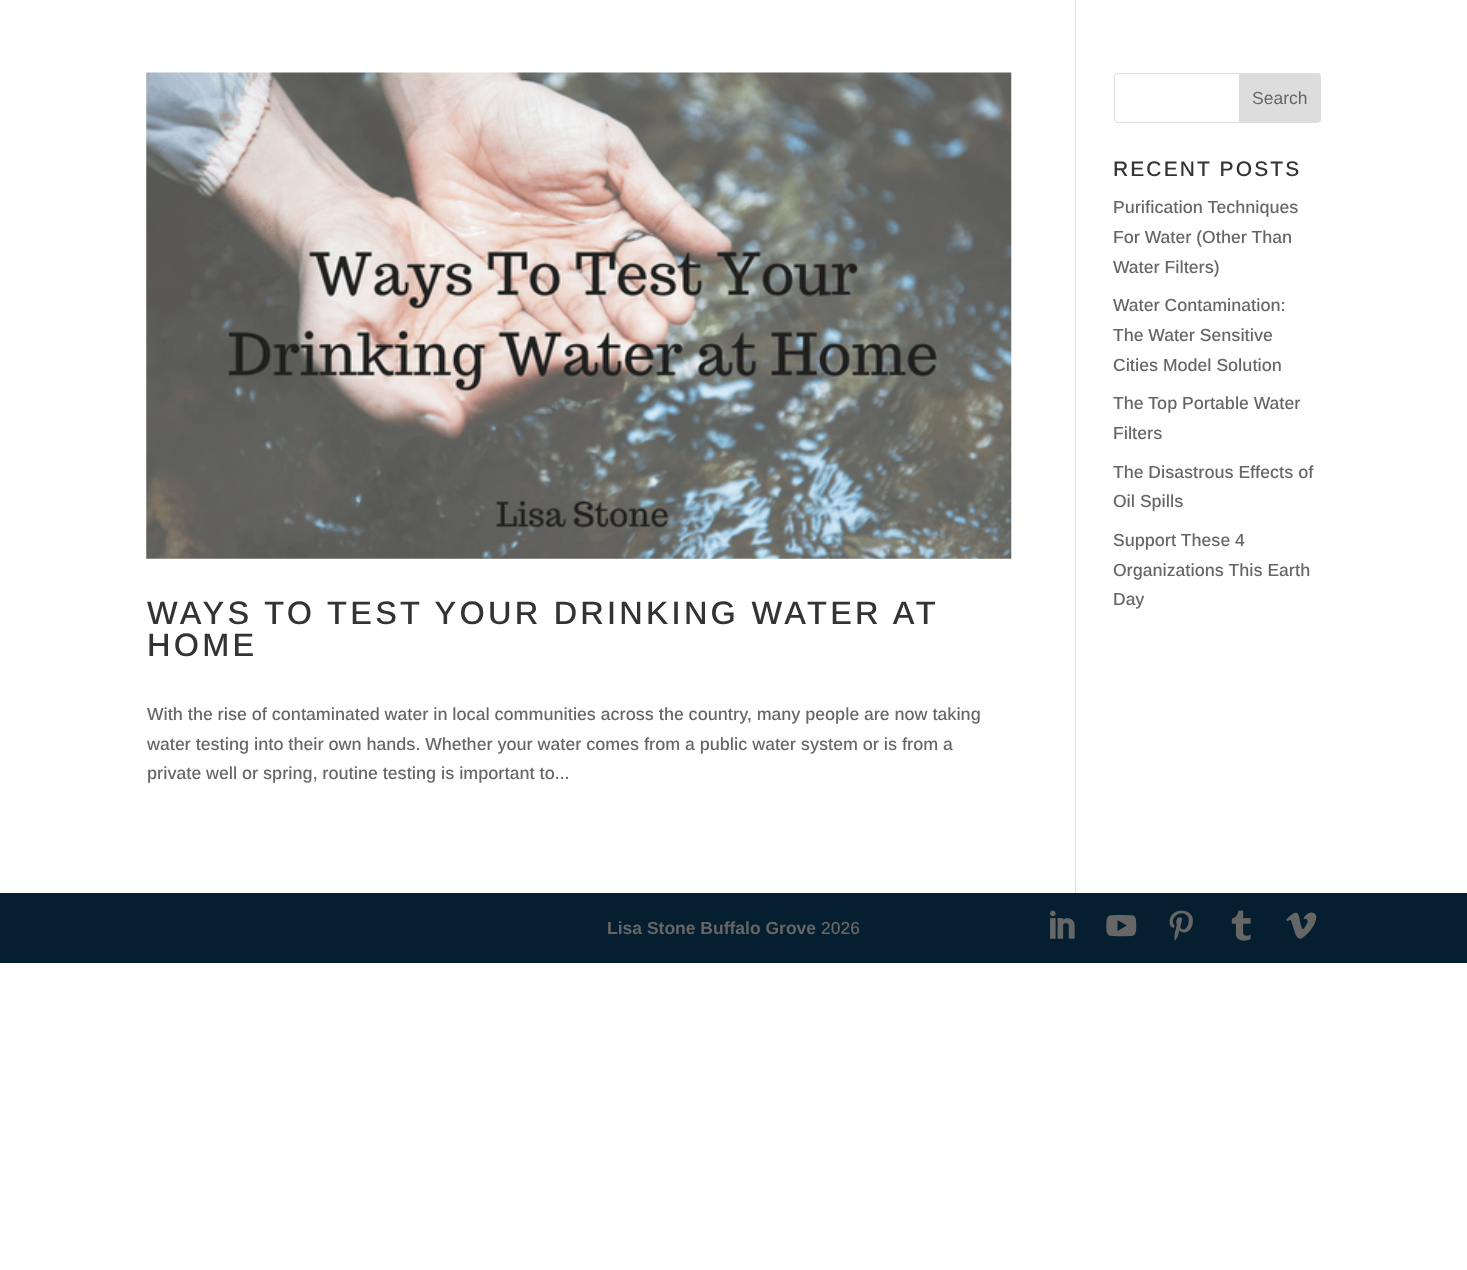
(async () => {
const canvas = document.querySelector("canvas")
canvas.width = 1467
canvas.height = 1270
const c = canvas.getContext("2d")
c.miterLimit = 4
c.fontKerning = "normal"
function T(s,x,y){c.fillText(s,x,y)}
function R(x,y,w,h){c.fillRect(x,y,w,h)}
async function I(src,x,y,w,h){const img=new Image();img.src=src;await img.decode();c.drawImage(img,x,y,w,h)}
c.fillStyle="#fff"
R(0,0,1467,1270)
c.fillStyle="#e2e2e2"
R(1075,0,1,893)
c.beginPath()
c.roundRect(1114.5,73.5,206,49,3.5)
c.strokeStyle="#ddd"
c.stroke()
c.fillStyle="#ddd"
c.beginPath()
c.roundRect(1239.5,73.5,81,49,[0,3.5,3.5,0])
c.fill()
c.stroke()
c.font="17.5px Arimo"
c.fillStyle="#666"
T("Search",1252,104)
c.letterSpacing="2.1px"
c.font="500 21px Arimo"
c.fillStyle="#333"
T("RECENT POSTS",1113,176)
c.letterSpacing="0px"
c.font="500 17.5px Arimo"
c.fillStyle="#666"
T("Purification Techniques",1113,213)
T("For Water (Other Than",1113,243)
T("Water Filters)",1113,273)
T("Water Contamination:",1113,311)
T("The Water Sensitive",1113,341)
T("Cities Model Solution",1113,371)
T("The Top Portable Water",1113,409)
T("Filters",1113,439)
T("The Disastrous Effects of",1113,478)
T("Oil Spills",1113,507)
T("Support These 4",1113,546)
T("Organizations This Earth",1113,576)
T("Day",1113,605)
await I("1.png",146,72,866,487)
c.letterSpacing="3.25px"
c.font="500 32.5px Arimo"
c.fillStyle="#333"
T("WAYS TO TEST YOUR DRINKING WATER AT",147,624)
T("HOME",147,656)
c.letterSpacing="0px"
c.font="500 17.5px Arimo"
c.fillStyle="#666"
T("With the rise of contaminated water in local communities across the country, many people are now taking",147,720)
T("water testing into their own hands. Whether your water comes from a public water system or is from a",147,750)
T("private well or spring, routine testing is important to...",147,779)
c.fillStyle="#051f30"
R(0,893,1467,70)
c.font="bold 17.5px Arimo"
c.fillStyle="#666"
T("Lisa Stone Buffalo Grove",607,934)
c.font="500 17.5px Arimo"
T("2026",821,934)
await I("2.png",1050,910,25,29)
await I("3.png",1106,915,31,22)
await I("4.png",1169,910,24,31)
await I("5.png",1231,910,20,31)
await I("6.png",1286,912,31,27)
})()
